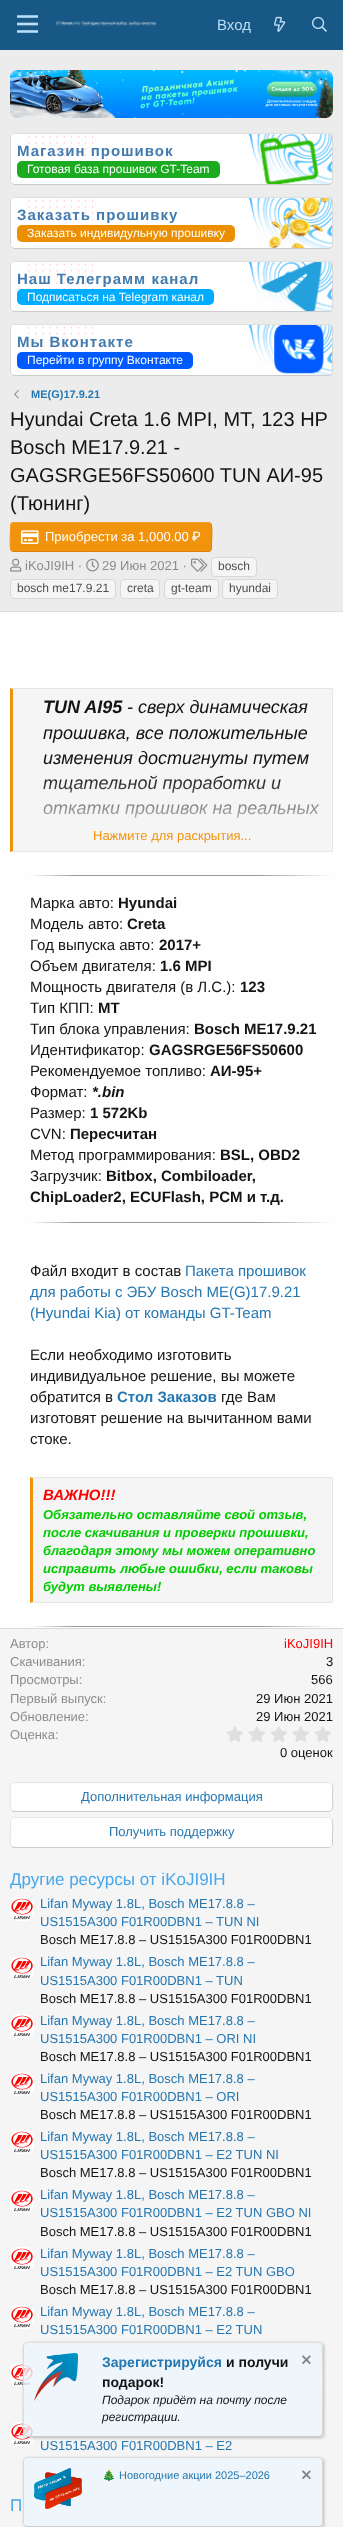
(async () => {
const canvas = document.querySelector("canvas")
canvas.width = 343
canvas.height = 2527
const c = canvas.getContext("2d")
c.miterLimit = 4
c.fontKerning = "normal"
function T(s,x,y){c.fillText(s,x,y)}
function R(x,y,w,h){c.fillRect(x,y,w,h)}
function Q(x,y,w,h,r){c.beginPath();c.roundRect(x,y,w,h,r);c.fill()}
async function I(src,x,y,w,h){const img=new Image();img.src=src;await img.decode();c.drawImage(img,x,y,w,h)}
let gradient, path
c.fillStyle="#ececec"
R(0,0,343,2527)
c.fillStyle="#185886"
R(0,0,343,50)
await I("1.png",17,15,21,18)
await I("2.png",55,21,101,6)
c.font="15px Liberation Sans"
c.fillStyle="#bcdef5"
T("Вход",217,30)
await I("3.png",274,16,12,16)
await I("4.png",312,16,15,16)
await I("5.png",10,70,323,48)
c.fillStyle="#fefefe"
Q(10,133,323,52,4)
await I("6.png",28,133,304,52)
path = new Path2D("M11.5 134.5l2.5-1h315l2.5 1")
c.strokeStyle="#dfdfdf"
c.stroke(path)
path = new Path2D("M331.5 134.5c.5 .5 1 1.5 1 2.5v44c0 1-.5 2-1 2.5")
c.strokeStyle="#d8d8d8"
c.stroke(path)
path = new Path2D("M331.5 183.5l-2.5 1h-315l-2.5-1")
c.strokeStyle="#cbcbcb"
c.stroke(path)
path = new Path2D("M11.5 183.5c-.5-.5-1-1.5-1-2.5v-44c0-1 .5-2 1-2.5")
c.strokeStyle="#d8d8d8"
c.stroke(path)
c.letterSpacing="1px"
c.font="bold 15px Liberation Sans"
c.fillStyle="#427caf"
T("Магазин прошивок",17,156)
c.fillStyle="#1bab21"
Q(17,161,203,17,5)
c.letterSpacing="0px"
c.font="12px Liberation Sans"
c.fillStyle="#fff"
T("Готовая база прошивок GT-Team",27,173)
c.fillStyle="#fefefe"
Q(10,197,323,52,4)
await I("7.png",28,197,304,52)
path = new Path2D("M11.5 198.5l2.5-1h315l2.5 1")
c.strokeStyle="#dfdfdf"
c.stroke(path)
path = new Path2D("M331.5 198.5c.5 .5 1 1.5 1 2.5v44c0 1-.5 2-1 2.5")
c.strokeStyle="#d8d8d8"
c.stroke(path)
path = new Path2D("M331.5 247.5l-2.5 1h-315l-2.5-1")
c.strokeStyle="#cbcbcb"
c.stroke(path)
path = new Path2D("M11.5 247.5c-.5-.5-1-1.5-1-2.5v-44c0-1 .5-2 1-2.5")
c.strokeStyle="#d8d8d8"
c.stroke(path)
c.letterSpacing="1px"
c.font="bold 15px Liberation Sans"
c.fillStyle="#427caf"
T("Заказать прошивку",17,220)
c.fillStyle="#eb8f00"
Q(17,225,218,17,5)
c.letterSpacing="0px"
c.font="12px Liberation Sans"
c.fillStyle="#fff"
T("Заказать индивидульную прошивку",27,237)
c.fillStyle="#fefefe"
Q(10,261,323,51,4)
await I("8.png",28,261,304,51)
path = new Path2D("M11.5 262.5l2.5-1h315l2.5 1")
c.strokeStyle="#dfdfdf"
c.stroke(path)
path = new Path2D("M331.5 262.5c.5 .5 1 1.5 1 2.5v43c0 1-.5 2-1 2.5")
c.strokeStyle="#d8d8d8"
c.stroke(path)
path = new Path2D("M331.5 310.5l-2.5 1h-315l-2.5-1")
c.strokeStyle="#cbcbcb"
c.stroke(path)
path = new Path2D("M11.5 310.5c-.5-.5-1-1.5-1-2.5v-43c0-1 .5-2 1-2.5")
c.strokeStyle="#d8d8d8"
c.stroke(path)
c.letterSpacing="1px"
c.font="bold 15px Liberation Sans"
c.fillStyle="#427caf"
T("Наш Телеграмм канал",17,284)
c.fillStyle="#00acff"
Q(17,289,197,16,5)
c.letterSpacing="0px"
c.font="12px Liberation Sans"
c.fillStyle="#fff"
T("Подписаться на Telegram канал",27,301)
c.fillStyle="#fefefe"
Q(10,324,323,52,4)
await I("9.png",28,324,304,52)
path = new Path2D("M11.5 325.5l2.5-1h315l2.5 1")
c.strokeStyle="#dfdfdf"
c.stroke(path)
path = new Path2D("M331.5 325.5c.5 .5 1 1.5 1 2.5v44c0 1-.5 2-1 2.5")
c.strokeStyle="#d8d8d8"
c.stroke(path)
path = new Path2D("M331.5 374.5l-2.5 1h-315l-2.5-1")
c.strokeStyle="#cbcbcb"
c.stroke(path)
path = new Path2D("M11.5 374.5c-.5-.5-1-1.5-1-2.5v-44c0-1 .5-2 1-2.5")
c.strokeStyle="#d8d8d8"
c.stroke(path)
c.letterSpacing="1px"
c.font="bold 15px Liberation Sans"
c.fillStyle="#427caf"
T("Мы Вконтакте",17,347)
c.fillStyle="#005aff"
Q(17,352,176,17,5)
c.letterSpacing="0px"
c.font="12px Liberation Sans"
c.fillStyle="#fff"
T("Перейти в группу Вконтакте",27,364)
await I("10.png",14,390,5,9)
c.font="bold 11px Liberation Sans"
c.fillStyle="#2577b1"
T("ME(G)17.9.21",31,398)
c.font="20px Liberation Sans"
c.fillStyle="#141414"
T("Hyundai Creta 1.6 MPI, MT, 123 HP",10,426)
T("Bosch ME17.9.21 -",10,454)
T("GAGSRGE56FS50600 TUN АИ-95",10,482)
T("(Тюнинг)",10,510)
c.fillStyle="#f2930d"
Q(10,522,202,30,4)
path = new Path2D("M210.5 523.5c2.5 2.5 1 17 1 21c0 2.5 .5 7-3.5 7h-194l-2.5-1")
c.strokeStyle="#da840c"
c.stroke(path)
path = new Path2D("M11.5 550.5c-2.5-2.5-1-17-1-21c0-2.5-.5-7 3.5-7h194l2.5 1")
c.strokeStyle="#f39e25"
c.stroke(path)
await I("11.png",21,530,18,14)
c.font="13px Liberation Sans"
c.fillStyle="#fff"
T("Приобрести за 1,000.00",45,541)
c.font="13px Roboto"
T("₽",192,541)
await I("12.png",10,558,12,14)
c.font="13px Liberation Sans"
c.fillStyle="#8c8c8c"
T("iKoJI9IH ·",25,570)
await I("13.png",86,558,13,14)
T("29 Июн 2021 ·",102,570)
await I("14.png",191,558,17,14)
c.fillStyle="#f5f5f5"
c.beginPath()
c.roundRect(211.5,557.5,45,19,3.5)
c.fill()
c.strokeStyle="#d8d8d8"
c.stroke()
c.font="12px Liberation Sans"
c.fillStyle="#505050"
T("bosch",218,570)
c.fillStyle="#f5f5f5"
c.beginPath()
c.roundRect(10.5,579.5,105,19,3.5)
c.fill()
c.stroke()
c.fillStyle="#505050"
T("bosch me17.9.21",17,592)
c.fillStyle="#f5f5f5"
c.beginPath()
c.roundRect(120.5,579.5,39,19,3.5)
c.fill()
c.stroke()
c.fillStyle="#505050"
T("creta",127,592)
c.fillStyle="#f5f5f5"
c.beginPath()
c.roundRect(164.5,579.5,54,19,3.5)
c.fill()
c.stroke()
c.fillStyle="#505050"
T("gt-team",171,592)
c.fillStyle="#f5f5f5"
c.beginPath()
c.roundRect(222.5,579.5,55,19,3.5)
c.fill()
c.stroke()
c.fillStyle="#505050"
T("hyundai",229,592)
c.fillStyle="#fefefe"
R(0,612,343,1016)
c.fillStyle="#dfdfdf"
R(0,611,343,1)
c.fillStyle="#f5f5f5"
R(13,689,319,147)
c.fillStyle="#e7e7e7"
path = new Path2D("M10 688h323l-1 1h-319z")
c.fill(path)
R(332,688,1,164)
path = new Path2D("M333 852h-323l3-1h319z")
c.fill(path)
c.fillStyle="#f2930d"
path = new Path2D("M10 852v-164l3 1v162z")
c.fill(path)
c.font="italic bold 18px Liberation Sans"
c.fillStyle="#141414"
T("TUN AI95",43,713)
c.font="italic 18px Liberation Sans"
T("- сверх динамическая",127,713)
T("прошивка, все положительные",43,739)
T("изменения достигнуты путем",43,764)
T("тщательной проработки и",43,789)
T("откатки прошивок на реальных",43,814)
gradient = c.createLinearGradient(173,776,173,851)
gradient.addColorStop(0,"#f5f5f500")
gradient.addColorStop(.8,"#f5f5f5")
c.fillStyle = gradient
R(13,777,319,74)
c.font="13px Liberation Sans"
c.fillStyle="#f2930d"
T("Нажмите для раскрытия...",93,840)
gradient = c.createLinearGradient(333,876,30,876)
gradient.addColorStop(0,"#fefefe")
gradient.addColorStop(.25,"#999")
gradient.addColorStop(.85,"#999")
gradient.addColorStop(1,"#fefefe")
c.fillStyle = gradient
R(30,875,303,1)
c.font="15px Liberation Sans"
c.fillStyle="#141414"
T("Марка авто:",30,908)
c.font="bold 15px Liberation Sans"
T("Hyundai",118,908)
c.font="15px Liberation Sans"
T("Модель авто:",30,929)
c.font="bold 15px Liberation Sans"
T("Creta",127,929)
c.font="15px Liberation Sans"
T("Год выпуска авто:",30,950)
c.font="bold 15px Liberation Sans"
T("2017+",159,950)
c.font="15px Liberation Sans"
T("Объем двигателя:",30,971)
c.font="bold 15px Liberation Sans"
T("1.6 MPI",160,971)
c.font="15px Liberation Sans"
T("Мощность двигателя (в Л.С.):",30,992)
c.font="bold 15px Liberation Sans"
T("123",240,992)
c.font="15px Liberation Sans"
T("Тип КПП:",30,1013)
c.font="bold 15px Liberation Sans"
T("MT",98,1013)
c.font="15px Liberation Sans"
T("Тип блока управления:",30,1034)
c.font="bold 15px Liberation Sans"
T("Bosch ME17.9.21",194,1034)
c.font="15px Liberation Sans"
T("Идентификатор:",30,1055)
c.font="bold 15px Liberation Sans"
T("GAGSRGE56FS50600",149,1055)
c.font="15px Liberation Sans"
T("Рекомендуемое топливо:",30,1076)
c.font="bold 15px Liberation Sans"
T("АИ-95+",210,1076)
c.font="15px Liberation Sans"
T("Формат:",30,1097)
c.font="italic bold 15px Liberation Sans"
T("*.bin",92,1097)
c.font="15px Liberation Sans"
T("Размер:",30,1118)
c.font="bold 15px Liberation Sans"
T("1 572Kb",90,1118)
c.font="15px Liberation Sans"
T("CVN:",30,1139)
c.font="bold 15px Liberation Sans"
T("Пересчитан",70,1139)
c.font="15px Liberation Sans"
T("Метод программирования:",30,1160)
c.font="bold 15px Liberation Sans"
T("BSL, OBD2",220,1160)
c.font="15px Liberation Sans"
T("Загрузчик:",30,1181)
c.font="bold 15px Liberation Sans"
T("Bitbox, Combiloader,",106,1181)
T("ChipLoader2, ECUFlash, PCM и т.д.",30,1202)
gradient = c.createLinearGradient(333,1223,30,1223)
gradient.addColorStop(0,"#fefefe")
gradient.addColorStop(.25,"#999")
gradient.addColorStop(.85,"#999")
gradient.addColorStop(1,"#fefefe")
c.fillStyle = gradient
R(30,1222,303,1)
c.font="15px Liberation Sans"
c.fillStyle="#141414"
T("Файл входит в состав",30,1276)
c.fillStyle="#2577b1"
T("Пакета прошивок",185,1276)
T("для работы с ЭБУ Bosch ME(G)17.9.21",30,1297)
T("(Hyundai Kia) от команды GT-Team",30,1318)
c.fillStyle="#141414"
T("Если необходимо изготовить",30,1360)
T("индивидуальное решение, вы можете",30,1381)
T("обратится в",30,1402)
c.font="bold 15px Liberation Sans"
c.fillStyle="#2577b1"
T("Стол Заказов",117,1402)
c.font="15px Liberation Sans"
c.fillStyle="#141414"
T("где Вам",221,1402)
T("изготовят решение на вычитанном вами",30,1423)
T("стоке.",30,1444)
c.fillStyle="#f5f5f5"
R(33,1478,299,124)
c.fillStyle="#e7e7e7"
path = new Path2D("M30 1477h303l-1 1h-299z")
c.fill(path)
R(332,1477,1,126)
path = new Path2D("M333 1603h-303l3-1h299z")
c.fill(path)
c.fillStyle="#f2930d"
path = new Path2D("M30 1603v-126l3 1v124z")
c.fill(path)
c.font="italic bold 15px Liberation Sans"
c.fillStyle="#f00"
T("ВАЖНО!!!",43,1500)
c.font="italic bold 13px Liberation Sans"
c.fillStyle="#0c0"
T("Обязательно оставляйте свой отзыв,",43,1519)
T("после скачивания и проверки прошивки,",43,1537)
T("благодаря этому мы можем оперативно",43,1555)
T("исправить любые ошибки, если таковы",43,1573)
T("будут выявлены!",43,1591)
gradient = c.createLinearGradient(333,1627,30,1627)
gradient.addColorStop(0,"#fefefe")
gradient.addColorStop(.25,"#999")
gradient.addColorStop(.85,"#999")
gradient.addColorStop(1,"#fefefe")
c.fillStyle = gradient
R(30,1626,303,1)
c.fillStyle="#f5f5f5"
R(0,1629,343,898)
c.fillStyle="#d8d8d8"
R(0,1628,343,1)
c.font="13px Liberation Sans"
c.fillStyle="#8c8c8c"
T("Автор:",10,1648)
c.fillStyle="#f00"
T("iKoJI9IH",284,1648)
c.fillStyle="#8c8c8c"
T("Скачивания:",10,1666)
c.fillStyle="#141414"
T("3",326,1666)
c.fillStyle="#8c8c8c"
T("Просмотры:",10,1684)
c.fillStyle="#141414"
T("566",311,1684)
c.fillStyle="#8c8c8c"
T("Первый выпуск:",10,1703)
c.fillStyle="#141414"
T("29 Июн 2021",256,1703)
c.fillStyle="#8c8c8c"
T("Обновление:",10,1721)
c.fillStyle="#141414"
T("29 Июн 2021",256,1721)
c.fillStyle="#8c8c8c"
T("Оценка:",10,1739)
await I("15.png",226,1726,17,16)
await I("15.png",248,1726,17,16)
await I("15.png",270,1726,17,16)
await I("15.png",292,1726,17,16)
await I("15.png",314,1726,17,16)
c.fillStyle="#141414"
T("0 оценок",280,1757)
c.fillStyle="#fefefe"
Q(10,1782,323,30,4)
path = new Path2D("M331.5 1783.5c2 2 1 10.5 1 13.5c0 3 1 11.5-1 13.5l-2.5 1h-315l-2.5-1")
c.strokeStyle="#cbcbcb"
c.stroke(path)
path = new Path2D("M11.5 1810.5c-2-2-1-10.5-1-13.5c0-3-1-11.5 1-13.5l2.5-1h315l2.5 1")
c.strokeStyle="#e5e5e5"
c.stroke(path)
c.fillStyle="#2577b1"
T("Дополнительная информация",81,1801)
c.fillStyle="#fefefe"
Q(10,1817,323,31,4)
path = new Path2D("M331.5 1818.5c2 2.5 1 11 1 14v7.5c0 2.5 .5 6.5-3 7.5h-315.5l-2.5-1")
c.strokeStyle="#cbcbcb"
c.stroke(path)
path = new Path2D("M11.5 1846.5c-2-2.5-1-11-1-14v-7.5c0-2.5-.5-6.5 3-7.5h315.5l2.5 1")
c.strokeStyle="#e5e5e5"
c.stroke(path)
c.fillStyle="#2577b1"
T("Получить поддержку",109,1836)
c.font="17px Liberation Sans"
c.fillStyle="#47a7eb"
T("Другие ресурсы от iKoJI9IH",10,1885)
c.fillStyle="#fefefe"
Q(10,1897,24,24,8)
await I("16.png",11,1898,22,22)
c.font="13px Liberation Sans"
c.fillStyle="#2577b1"
T("Lifan Myway 1.8L, Bosch ME17.8.8 –",40,1908)
T("US1515A300 F01R00DBN1 – TUN NI",40,1926)
c.fillStyle="#141414"
T("Bosch ME17.8.8 – US1515A300 F01R00DBN1",40,1944)
c.fillStyle="#fefefe"
Q(10,1956,24,24,8)
await I("16.png",11,1957,22,22)
c.fillStyle="#2577b1"
T("Lifan Myway 1.8L, Bosch ME17.8.8 –",40,1966)
T("US1515A300 F01R00DBN1 – TUN",40,1985)
c.fillStyle="#141414"
T("Bosch ME17.8.8 – US1515A300 F01R00DBN1",40,2003)
c.fillStyle="#fefefe"
Q(10,2014,24,24,8)
await I("16.png",11,2015,22,22)
c.fillStyle="#2577b1"
T("Lifan Myway 1.8L, Bosch ME17.8.8 –",40,2025)
T("US1515A300 F01R00DBN1 – ORI NI",40,2043)
c.fillStyle="#141414"
T("Bosch ME17.8.8 – US1515A300 F01R00DBN1",40,2061)
c.fillStyle="#fefefe"
Q(10,2072,24,24,8)
await I("16.png",11,2073,22,22)
c.fillStyle="#2577b1"
T("Lifan Myway 1.8L, Bosch ME17.8.8 –",40,2083)
T("US1515A300 F01R00DBN1 – ORI",40,2101)
c.fillStyle="#141414"
T("Bosch ME17.8.8 – US1515A300 F01R00DBN1",40,2119)
c.fillStyle="#fefefe"
Q(10,2130,24,24,8)
await I("16.png",11,2131,22,22)
c.fillStyle="#2577b1"
T("Lifan Myway 1.8L, Bosch ME17.8.8 –",40,2141)
T("US1515A300 F01R00DBN1 – E2 TUN NI",40,2159)
c.fillStyle="#141414"
T("Bosch ME17.8.8 – US1515A300 F01R00DBN1",40,2177)
c.fillStyle="#fefefe"
Q(10,2189,24,24,8)
await I("16.png",11,2190,22,22)
c.fillStyle="#2577b1"
T("Lifan Myway 1.8L, Bosch ME17.8.8 –",40,2199)
T("US1515A300 F01R00DBN1 – E2 TUN GBO NI",40,2217)
c.fillStyle="#141414"
T("Bosch ME17.8.8 – US1515A300 F01R00DBN1",40,2236)
c.fillStyle="#fefefe"
Q(10,2247,24,24,8)
await I("16.png",11,2248,22,22)
c.fillStyle="#2577b1"
T("Lifan Myway 1.8L, Bosch ME17.8.8 –",40,2258)
T("US1515A300 F01R00DBN1 – E2 TUN GBO",40,2276)
c.fillStyle="#141414"
T("Bosch ME17.8.8 – US1515A300 F01R00DBN1",40,2294)
c.fillStyle="#fefefe"
Q(10,2305,24,24,8)
await I("16.png",11,2306,22,22)
c.fillStyle="#2577b1"
T("Lifan Myway 1.8L, Bosch ME17.8.8 –",40,2316)
T("US1515A300 F01R00DBN1 – E2 TUN",40,2334)
c.fillStyle="#fefefe"
Q(10,2363,24,24,8)
await I("16.png",11,2364,22,22)
Q(10,2422,24,24,8)
await I("16.png",11,2423,22,22)
c.fillStyle="#2577b1"
T("US1515A300 F01R00DBN1 – E2",40,2450)
c.font="17px Liberation Sans"
c.fillStyle="#47a7eb"
T("П",10,2511)
c.save()
path = new Path2D("M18 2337h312v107h-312zm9 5h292c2 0 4 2 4 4v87c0 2-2 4-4 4h-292c-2 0-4-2-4-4v-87c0-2 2-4 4-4z")
c.clip(path,"evenodd")
c.fillStyle="#00000040"
c.filter="blur(1.5px)"
c.beginPath()
c.roundRect(24,2343,300,95,4)
c.fill()
c.filter="none"
c.restore()
c.fillStyle="#edf6fdcc"
Q(23,2342,300,95,4)
path = new Path2D("M24.5 2343.5l2.5-1h292l2.5 1")
c.strokeStyle="#dfdfdf"
c.stroke(path)
path = new Path2D("M321.5 2343.5v.5c2 2 1 66 1 74.5v14.5l-1 2.5")
c.strokeStyle="#d8d8d8"
c.stroke(path)
path = new Path2D("M321.5 2435.5l-2.5 1h-292l-2.5-1")
c.strokeStyle="#cbcbcb"
c.stroke(path)
path = new Path2D("M24.5 2435.5v-.5c-2-2-1-66-1-74.5v-14.5l1-2.5")
c.strokeStyle="#d8d8d8"
c.stroke(path)
await I("17.png",34,2353,44,48)
c.font="bold 14px Liberation Sans"
c.fillStyle="#2577b1"
T("Зарегистрируйся",102,2367)
c.fillStyle="#141414"
T("и получи",226,2367)
await I("18.png",302,2355,9,10)
T("подарок!",102,2387)
c.font="italic 12px Liberation Sans"
T("Подарок придёт на почту после",102,2404)
T("регистрации.",102,2421)
c.save()
path = new Path2D("M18 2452h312v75h-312zm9 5h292c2 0 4 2 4 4v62c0 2-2 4-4 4h-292c-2 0-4-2-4-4v-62c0-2 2-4 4-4z")
c.clip(path,"evenodd")
c.fillStyle="#00000040"
c.filter="blur(1.5px)"
c.beginPath()
c.roundRect(24,2458,300,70,4)
c.fill()
c.filter="none"
c.restore()
c.fillStyle="#edf6fdcc"
Q(23,2457,300,70,4)
path = new Path2D("M24.5 2458.5l2.5-1h292l2.5 1")
c.strokeStyle="#dfdfdf"
c.stroke(path)
path = new Path2D("M321.5 2458.5l1 2v63l-1 2")
c.strokeStyle="#d8d8d8"
c.stroke(path)
path = new Path2D("M321.5 2525.5l-2.5 1h-292l-2.5-1")
c.strokeStyle="#cbcbcb"
c.stroke(path)
path = new Path2D("M24.5 2525.5l-1-2v-63l1-2")
c.strokeStyle="#d8d8d8"
c.stroke(path)
await I("19.png",34,2468,48,41)
c.font="11px Noto Color Emoji"
c.fillStyle="#2577b1"
T("🎄",102,2479)
c.font="11px Liberation Sans"
T("Новогодние акции 2025–2026",119,2479)
await I("18.png",302,2470,9,10)
})()
